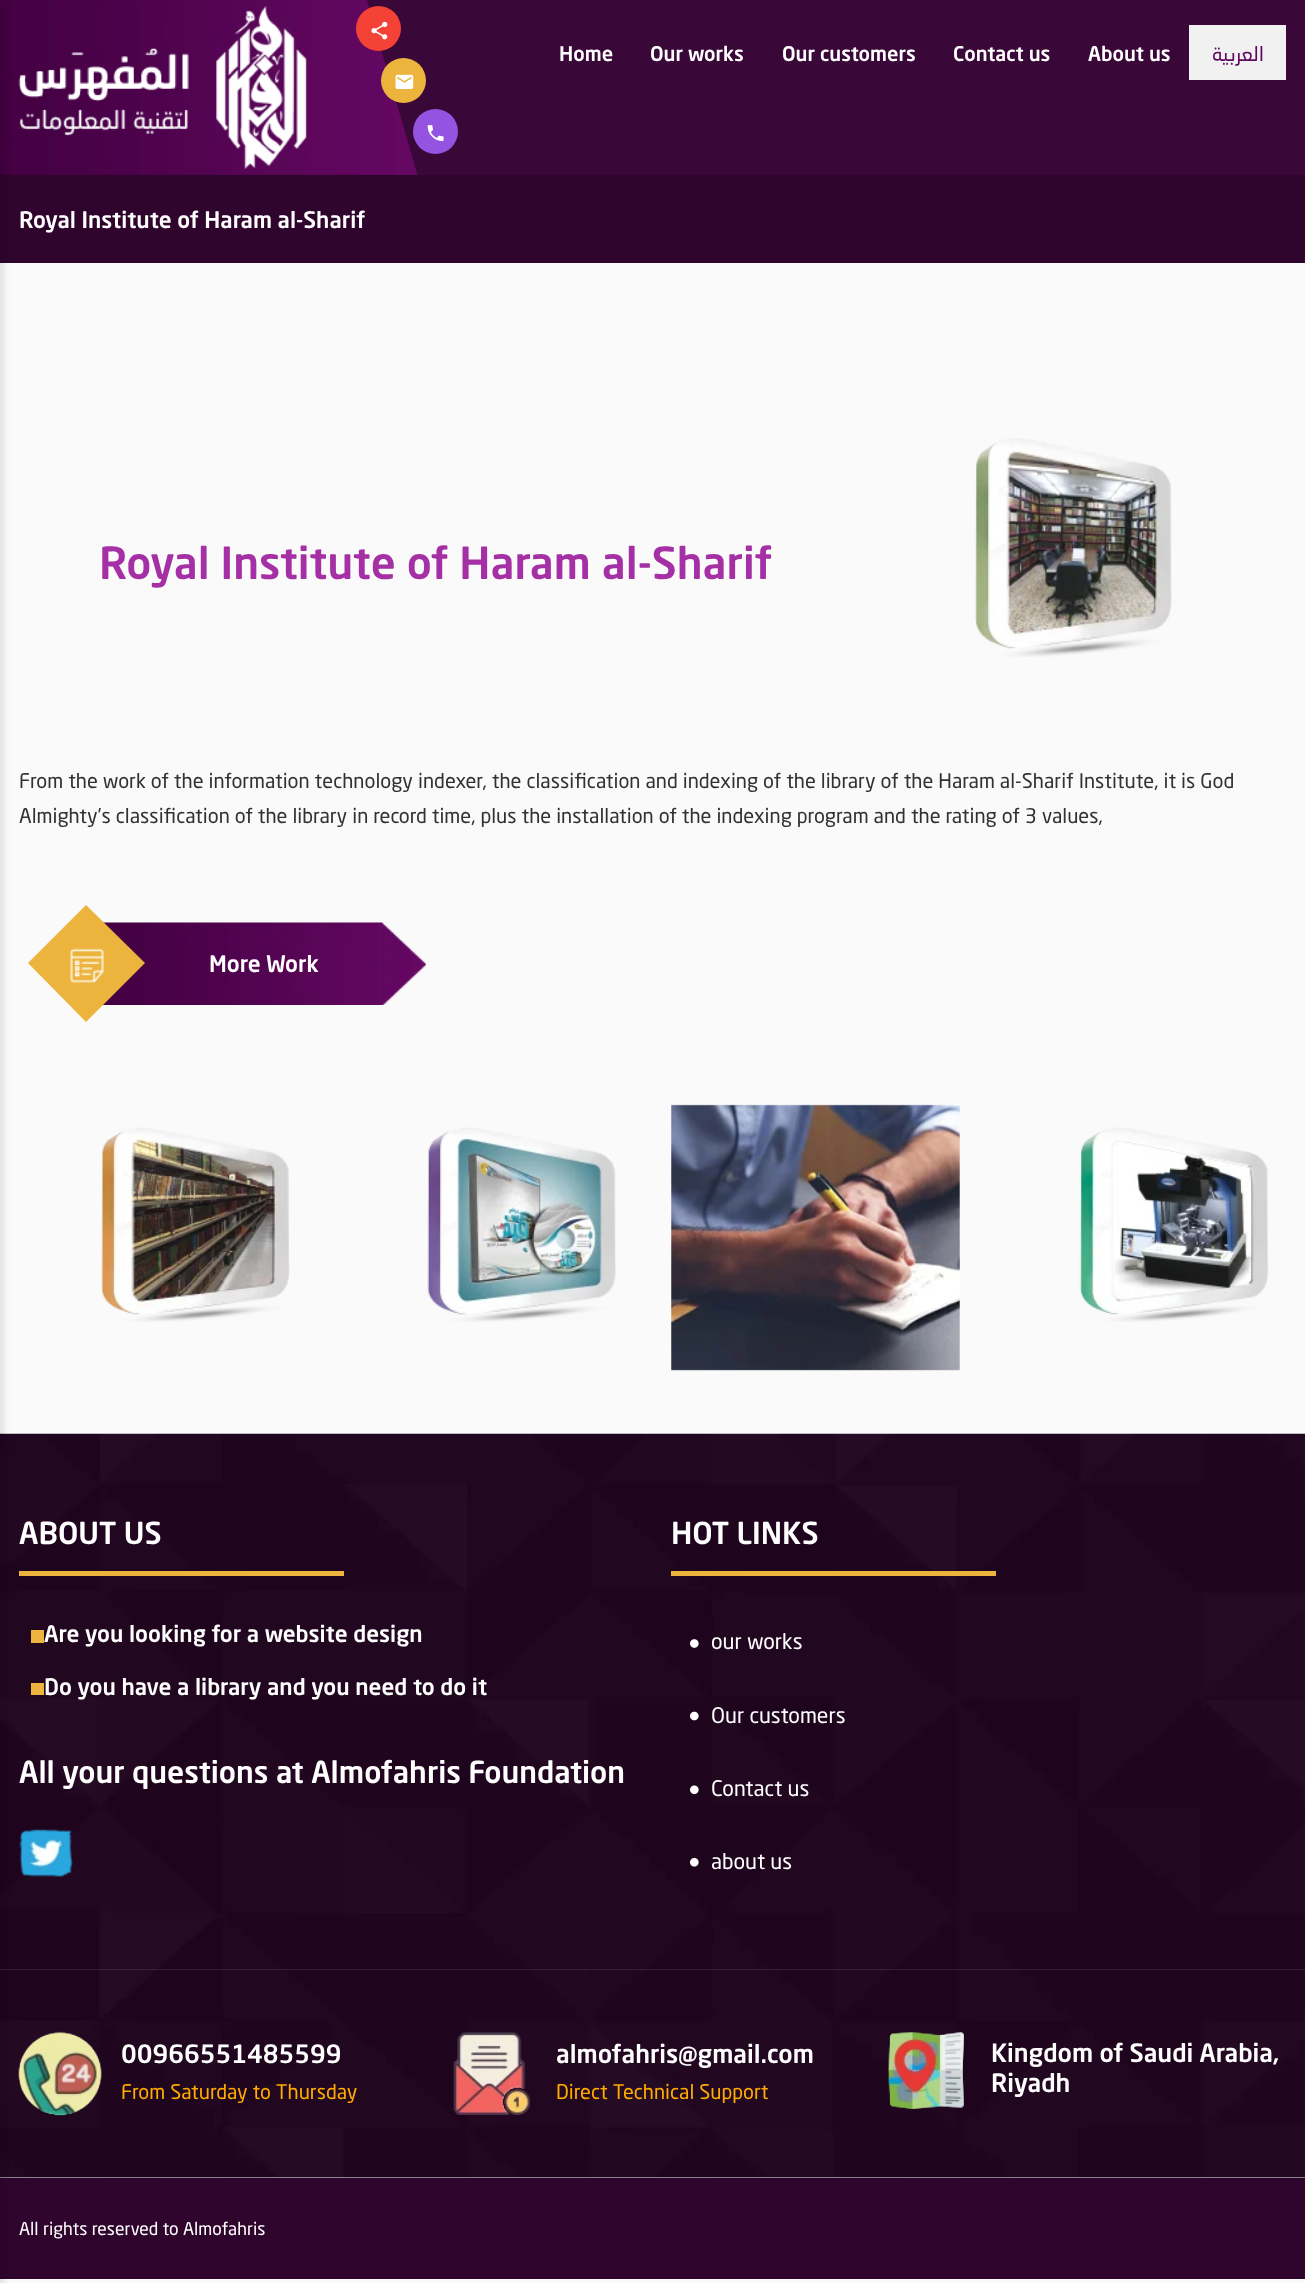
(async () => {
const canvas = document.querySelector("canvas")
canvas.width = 1305
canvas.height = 2283
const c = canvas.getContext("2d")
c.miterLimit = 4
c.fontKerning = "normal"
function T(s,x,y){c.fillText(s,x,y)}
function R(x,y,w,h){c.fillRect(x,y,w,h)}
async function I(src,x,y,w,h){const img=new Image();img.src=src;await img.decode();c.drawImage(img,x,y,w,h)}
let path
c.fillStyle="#fafafa"
R(0,0,1305,2283)
c.fillStyle="#3a0739"
R(0,0,1305,175)
await I("1.png",0,0,418,175)
await I("2.png",18,6,289,163)
c.fillStyle="#f44336"
c.beginPath()
c.arc(378.5,28.5,22.5,0,7)
c.fill()
await I("3.png",371,21,17,19)
c.fillStyle="#ecb43d"
c.beginPath()
c.arc(403.5,80.5,22.5,0,7)
c.fill()
await I("4.png",395,74,19,15)
c.fillStyle="#9454e1"
c.beginPath()
c.arc(435.5,131.5,22.5,0,7)
c.fill()
await I("5.png",427,125,17,17)
c.fillStyle="#2f052d"
R(0,175,1305,88)
await I("13.png",0,1433,1305,745)
c.fillStyle="#ffffff1a"
R(0,1969,1305,1)
c.fillStyle="#2f052d"
R(0,2179,1305,100)
c.fillStyle="#2a0529"
R(0,2178,1305,1)
c.fillStyle="#00000026"
c.filter="blur(3px)"
c.beginPath()
c.rect(-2,4,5,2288)
c.fill()
c.filter="none"
c.font="500 20px 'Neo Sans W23'"
c.fillStyle="#fff"
T("Home",559,61)
T("Our works",650,61)
T("Our customers",782,61)
T("Contact us",953,61)
T("About us",1088,61)
c.fillStyle="#f1f1f1"
R(1189,25,97,55)
c.direction="rtl"
c.font="20px 'Neo Sans W23'"
c.fillStyle="#5f085f"
T("العربية",1264,61)
c.direction="ltr"
c.font="500 22.5px 'Neo Sans W23'"
c.fillStyle="#fff"
T("Royal Institute of Haram al-Sharif",19,228)
c.font="500 43.75px 'Neo Sans W23'"
c.fillStyle="#a530a5"
T("Royal Institute of Haram al-Sharif",99,579)
await I("6.png",974,438,198,219)
c.font="20px 'Neo Sans W23'"
c.fillStyle="#323232"
T("From the work of the information technology indexer, the classification and indexing of the library of the Haram al-Sharif Institute, it is God",19,788)
T("Almighty’s classification of the library in record time, plus the installation of the indexing program and the rating of 3 values,",19,823)
await I("7.png",103,922,324,83)
c.fillStyle="#ecb43d"
path = new Path2D("M86 905l59 58l-59 59l-58-59z")
c.fill(path)
await I("8.png",69,948,35,35)
c.font="500 22.5px 'Neo Sans W23'"
c.fillStyle="#fff"
T("More Work",209,972)
await I("9.png",101,1127,189,195)
await I("10.png",427,1127,189,195)
await I("11.png",671,1104,289,267)
await I("12.png",1079,1127,190,195)
c.font="500 30px 'Neo Sans W23'"
T("ABOUT US",19,1544)
c.fillStyle="#ecb43d"
R(19,1571,325,5)
R(31,1630,13,13)
c.font="500 22.5px 'Neo Sans W23'"
c.fillStyle="#fff"
T("Are you looking for a website design",44,1642)
c.fillStyle="#ecb43d"
R(31,1683,13,12)
c.fillStyle="#fff"
T("Do you have a library and you need to do it",44,1695)
c.font="500 30px 'Neo Sans W23'"
T("All your questions at Almofahris Foundation",19,1783)
await I("14.png",19,1829,55,48)
T("HOT LINKS",671,1544)
c.fillStyle="#ecb43d"
R(671,1571,325,5)
await I("15.png",690,1639,9,9)
c.font="21.25px 'Neo Sans W23'"
c.fillStyle="#fff"
T("our works",711,1649)
await I("16.png",690,1711,9,10)
T("Our customers",711,1723)
await I("17.png",690,1785,9,10)
T("Contact us",711,1796)
await I("18.png",690,1857,9,10)
T("about us",711,1869)
await I("19.png",18,2032,84,83)
await I("20.png",18,2031,84,85)
c.font="500 25px 'Neo Sans W23'"
T("00966551485599",121,2063)
c.font="20px 'Neo Sans W23'"
c.fillStyle="#ffab00"
T("From Saturday to Thursday",121,2099)
await I("21.png",453,2032,77,83)
await I("22.png",453,2032,77,83)
c.font="500 25px 'Neo Sans W23'"
c.fillStyle="#fff"
T("almofahris@gmail.com",556,2063)
c.font="20px 'Neo Sans W23'"
c.fillStyle="#ffab00"
T("Direct Technical Support",556,2099)
await I("23.png",888,2032,76,77)
await I("24.png",888,2032,76,77)
c.font="500 25px 'Neo Sans W23'"
c.fillStyle="#fff"
T("Kingdom of Saudi Arabia,",991,2062)
T("Riyadh",991,2092)
c.font="17.5px 'Neo Sans W23'"
T("All rights reserved to Almofahris",19,2235)
})()
